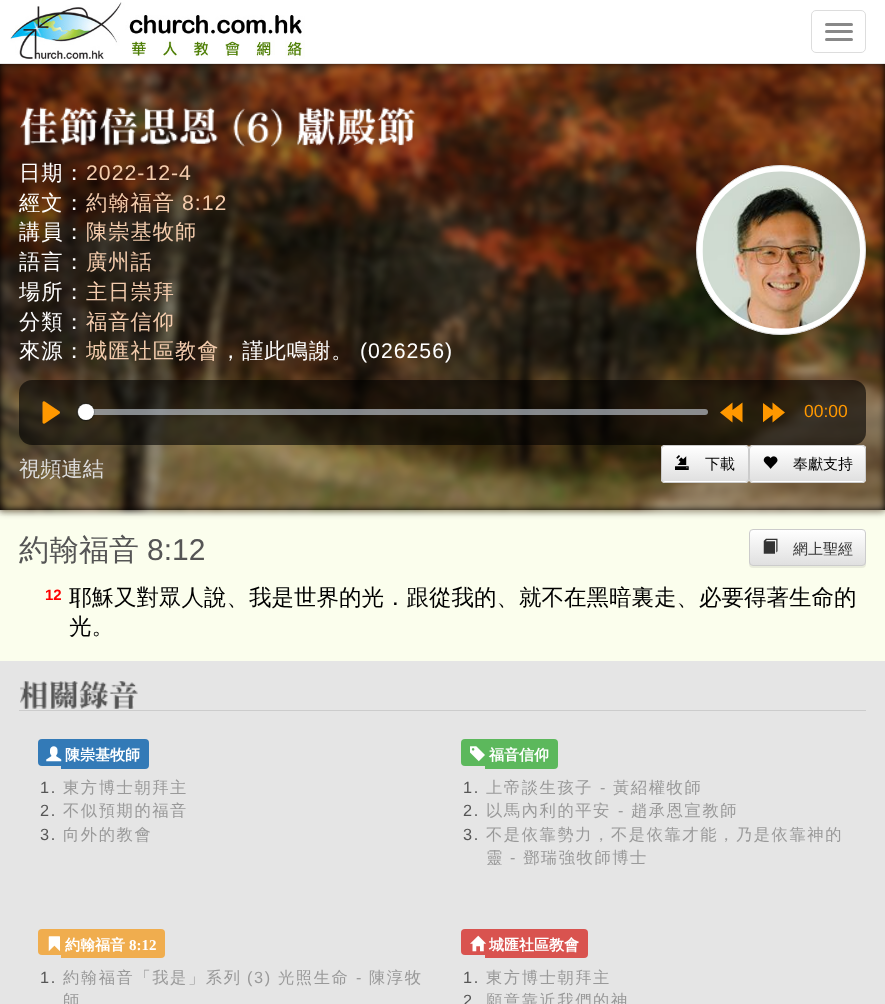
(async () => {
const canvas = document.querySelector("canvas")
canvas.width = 885
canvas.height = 1004
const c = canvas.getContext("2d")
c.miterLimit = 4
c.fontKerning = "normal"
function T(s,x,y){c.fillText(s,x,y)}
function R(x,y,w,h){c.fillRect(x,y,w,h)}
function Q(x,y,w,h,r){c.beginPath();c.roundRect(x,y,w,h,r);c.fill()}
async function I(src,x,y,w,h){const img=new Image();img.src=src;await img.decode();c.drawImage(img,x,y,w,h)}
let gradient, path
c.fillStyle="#fbfeed"
R(0,0,885,1004)
c.fillStyle="#000"
R(0,64,885,446)
c.fillStyle="#000000b3"
c.filter="blur(4px)"
c.beginPath()
c.rect(0,63,885,447)
c.fill()
c.filter="none"
await I("2.png",0,64,885,452)
c.fillStyle="#00000012"
c.filter="blur(3px)"
c.beginPath()
c.rect(0,1,885,64)
c.fill()
c.filter="none"
c.fillStyle="#e7e7e7"
R(0,63,885,1)
c.fillStyle="#fff"
R(0,0,885,63)
await I("1.png",10,2,295,57)
c.beginPath()
c.roundRect(811.5,10.5,54,42,4.5)
c.strokeStyle="#ddd"
c.stroke()
c.fillStyle="#888"
Q(825,23,28,3,1.5)
Q(825,30,28,3,1.5)
Q(825,38,28,3,1.5)
await I("3.png",20,107,38,39)
await I("4.png",60,107,38,39)
await I("5.png",100,107,38,39)
await I("6.png",139,107,39,39)
await I("7.png",179,107,39,37)
await I("8.png",233,108,50,39)
await I("9.png",296,107,40,39)
await I("10.png",337,108,39,38)
await I("11.png",377,107,39,39)
c.letterSpacing="1px"
c.font="500 21.25px WenQuanYi Zen Hei"
c.fillStyle="#fff"
T("日期：",19,180)
c.font="21.25px Liberation Sans"
c.fillStyle="#f4ccad"
T("2022-12-4",86,180)
c.font="500 21.25px WenQuanYi Zen Hei"
c.fillStyle="#fff"
T("經文：",19,210)
c.fillStyle="#f4ccad"
T("約翰福音",86,210)
c.font="21.25px Liberation Sans"
T("8:12",182,210)
c.font="500 21.25px WenQuanYi Zen Hei"
c.fillStyle="#fff"
T("講員：",19,239)
c.fillStyle="#f4ccad"
T("陳崇基牧師",86,239)
c.fillStyle="#fff"
T("語言：",19,269)
c.fillStyle="#f4ccad"
T("廣州話",86,269)
c.fillStyle="#fff"
T("場所：",19,299)
c.fillStyle="#f4ccad"
T("主日崇拜",86,299)
c.fillStyle="#fff"
T("分類：",19,329)
c.fillStyle="#f4ccad"
T("福音信仰",86,329)
c.fillStyle="#fff"
T("來源：",19,358)
c.fillStyle="#f4ccad"
T("城匯社區教會",86,358)
c.fillStyle="#fff"
T("，謹此鳴謝。",220,358)
c.font="21.25px Liberation Sans"
T("(026256)",360,358)
c.fillStyle="#00000012"
c.filter="blur(1px)"
c.beginPath()
c.roundRect(696,166,170,170,85)
c.fill()
c.filter="none"
c.fillStyle="#fff"
c.beginPath()
c.arc(781,250,84.5,0,7)
c.fill()
c.stroke()
await I("12.png",702,171,158,158)
c.fillStyle="#00000099"
Q(19,380,847,65,13)
await I("13.png",42,401,18,23)
c.fillStyle="#c1c9d1a8"
Q(78,409,630,6,3)
c.beginPath()
c.roundRect(76.5,403.5,18,17,8.5)
c.strokeStyle="#23292f33"
c.stroke()
c.fillStyle="#00000026"
c.filter="blur(0.5px)"
c.beginPath()
c.roundRect(78,405,16,16,8)
c.fill()
c.filter="none"
c.fillStyle="#fff"
c.beginPath()
c.arc(86,412,8,0,7)
c.fill()
c.fillStyle="#ff9800"
path = new Path2D("M732.5 402.5l-12.5 10l12.5 10v-7.5l10 7.5v-20l-10 7.5z")
c.fill(path)
c.save()
c.beginPath()
c.rect(763,401,22,23)
c.clip()
path = new Path2D("M772.5 410l-10-7.5v20l10-7.5v7.5l12.5-10l-12.5-10z")
c.fill(path)
c.restore()
c.letterSpacing="0px"
c.font="17.5px Liberation Sans"
T("00:00",804,417)
c.font="500 21.25px WenQuanYi Zen Hei"
c.fillStyle="#ddd"
T("視頻連結",19,476)
c.fillStyle="#fff"
Q(661,445,88,38,4)
c.save()
c.beginPath()
c.roundRect(661,445,88,38,4)
c.clip()
gradient = c.createLinearGradient(705,446,705,481)
gradient.addColorStop(0,"#fff")
gradient.addColorStop(1,"#e0e0e0")
c.fillStyle = gradient
R(661,446,88,35)
c.restore()
path = new Path2D("M665 448h80c1 0 3 1 3 2c0-8-10-4-16-4h-53c-6 0-16-2-16 3z")
c.fill(path)
c.beginPath()
c.roundRect(661.5,445.5,87,37,3.5)
c.strokeStyle="#ccc"
c.stroke()
await I("14.png",675,455,14,15)
c.font="500 15px WenQuanYi Zen Hei"
c.fillStyle="#000"
T("下載",705,469)
c.fillStyle="#fff"
Q(749,445,117,38,4)
c.save()
c.beginPath()
c.roundRect(749,445,117,38,4)
c.clip()
gradient = c.createLinearGradient(808,446,808,481)
gradient.addColorStop(0,"#fff")
gradient.addColorStop(1,"#e0e0e0")
c.fillStyle = gradient
R(749,446,117,35)
c.restore()
c.beginPath()
c.roundRect(749.5,445.5,116,37,3.5)
c.stroke()
await I("15.png",763,456,15,13)
c.fillStyle="#000"
T("奉獻支持",793,469)
c.font="500 30px WenQuanYi Zen Hei"
c.fillStyle="#555"
T("約翰福音",19,560)
c.font="30px Liberation Sans"
T("8:12",147,560)
c.font="bold 15px Liberation Sans"
c.fillStyle="#f00"
T("12",45,600)
c.font="500 22.5px WenQuanYi Zen Hei"
c.fillStyle="#000"
T("耶穌又對眾人說、我是世界的光．跟從我的、就不在黑暗裏走、必要得著生命的",69,605)
T("光。",69,634)
c.fillStyle="#00000012"
c.filter="blur(0.5px)"
c.beginPath()
c.roundRect(749,530,117,38,4)
c.fill()
c.filter="none"
c.save()
c.beginPath()
c.roundRect(749,529,117,37,4)
c.clip()
gradient = c.createLinearGradient(808,530,808,565)
gradient.addColorStop(0,"#fff")
gradient.addColorStop(1,"#e0e0e0")
c.fillStyle = gradient
R(749,530,117,35)
c.restore()
c.beginPath()
c.roundRect(749.5,529.5,116,36,3.5)
c.stroke()
await I("16.png",763,538,15,16)
c.font="500 15px WenQuanYi Zen Hei"
c.fillStyle="#333"
T("網上聖經",793,554)
c.fillStyle="#e5e5e5"
R(0,661,885,343)
c.fillStyle="#ccc"
R(19,710,847,1)
await I("17.png",20,681,28,28)
await I("18.png",50,681,28,28)
await I("19.png",79,680,29,29)
await I("20.png",109,681,29,28)
c.fillStyle="#337ab7"
c.beginPath()
c.roundRect(38,739,23,27,[4,0,0,4])
c.fill()
c.beginPath()
c.roundRect(61,739,88,30,[0,4,4,0])
c.fill()
await I("21.png",46,746,16,16)
c.font="bold 15px WenQuanYi Zen Hei"
c.fillStyle="#fff"
T("陳崇基牧師",65,760)
c.letterSpacing="1.6px"
c.font="16.25px Liberation Sans"
c.fillStyle="#555"
T("1.",40,793)
c.font="500 16.25px WenQuanYi Zen Hei"
c.fillStyle="#999"
T("東方博士朝拜主",63,793)
c.font="16.25px Liberation Sans"
c.fillStyle="#555"
T("2.",40,816)
c.font="500 16.25px WenQuanYi Zen Hei"
c.fillStyle="#999"
T("不似預期的福音",63,816)
c.font="16.25px Liberation Sans"
c.fillStyle="#555"
T("3.",40,840)
c.font="500 16.25px WenQuanYi Zen Hei"
c.fillStyle="#999"
T("向外的教會",63,840)
c.fillStyle="#5cb85c"
c.beginPath()
c.roundRect(461,739,24,27,[4,0,0,4])
c.fill()
c.beginPath()
c.roundRect(485,739,73,30,[0,4,4,0])
c.fill()
await I("22.png",470,746,15,16)
c.letterSpacing="0px"
c.font="bold 15px WenQuanYi Zen Hei"
c.fillStyle="#fff"
T("福音信仰",489,760)
c.letterSpacing="1.6px"
c.font="16.25px Liberation Sans"
c.fillStyle="#555"
T("1.",463,793)
c.font="500 16.25px WenQuanYi Zen Hei"
c.fillStyle="#999"
T("上帝談生孩子",486,793)
c.font="16.25px Liberation Sans"
T("-",600,793)
c.font="500 16.25px WenQuanYi Zen Hei"
T("黃紹權牧師",613,793)
c.font="16.25px Liberation Sans"
c.fillStyle="#555"
T("2.",463,816)
c.font="500 16.25px WenQuanYi Zen Hei"
c.fillStyle="#999"
T("以馬內利的平安",486,816)
c.font="16.25px Liberation Sans"
T("-",618,816)
c.font="500 16.25px WenQuanYi Zen Hei"
T("趙承恩宣教師",631,816)
c.font="16.25px Liberation Sans"
c.fillStyle="#555"
T("3.",463,840)
c.font="500 16.25px WenQuanYi Zen Hei"
c.fillStyle="#999"
T("不是依靠勢力，不是依靠才能，乃是依靠神的",486,840)
T("靈",486,863)
c.font="16.25px Liberation Sans"
T("-",510,863)
c.font="500 16.25px WenQuanYi Zen Hei"
T("鄧瑞強牧師博士",523,863)
c.fillStyle="#f0ad4e"
c.beginPath()
c.roundRect(38,929,23,26,[4,0,0,4])
c.fill()
c.beginPath()
c.roundRect(61,929,104,29,[0,4,4,0])
c.fill()
await I("23.png",48,936,12,16)
c.letterSpacing="0px"
c.font="bold 15px WenQuanYi Zen Hei"
c.fillStyle="#fff"
T("約翰福音",65,950)
c.font="bold 15px Liberation Serif"
T("8:12",129,950)
c.letterSpacing="1.6px"
c.font="16.25px Liberation Sans"
c.fillStyle="#555"
T("1.",40,983)
c.font="500 16.25px WenQuanYi Zen Hei"
c.fillStyle="#999"
T("約翰福音「我是」系列",63,983)
c.font="16.25px Liberation Sans"
T("(3)",247,983)
c.font="500 16.25px WenQuanYi Zen Hei"
T("光照生命",278,983)
c.font="16.25px Liberation Sans"
T("-",356,983)
c.font="500 16.25px WenQuanYi Zen Hei"
T("陳淳牧",369,983)
T("師",63,1006)
c.fillStyle="#d9534f"
c.beginPath()
c.roundRect(461,929,24,26,[4,0,0,4])
c.fill()
c.beginPath()
c.roundRect(485,929,103,29,[0,4,4,0])
c.fill()
await I("24.png",470,935,17,17)
c.letterSpacing="0px"
c.font="bold 15px WenQuanYi Zen Hei"
c.fillStyle="#fff"
T("城匯社區教會",489,950)
c.letterSpacing="1.6px"
c.font="16.25px Liberation Sans"
c.fillStyle="#555"
T("1.",463,983)
c.font="500 16.25px WenQuanYi Zen Hei"
c.fillStyle="#999"
T("東方博士朝拜主",486,983)
c.font="16.25px Liberation Sans"
c.fillStyle="#555"
T("2",463,1006)
c.font="500 16.25px WenQuanYi Zen Hei"
c.fillStyle="#999"
T("願意靠近我們的神",486,1006)
})()
